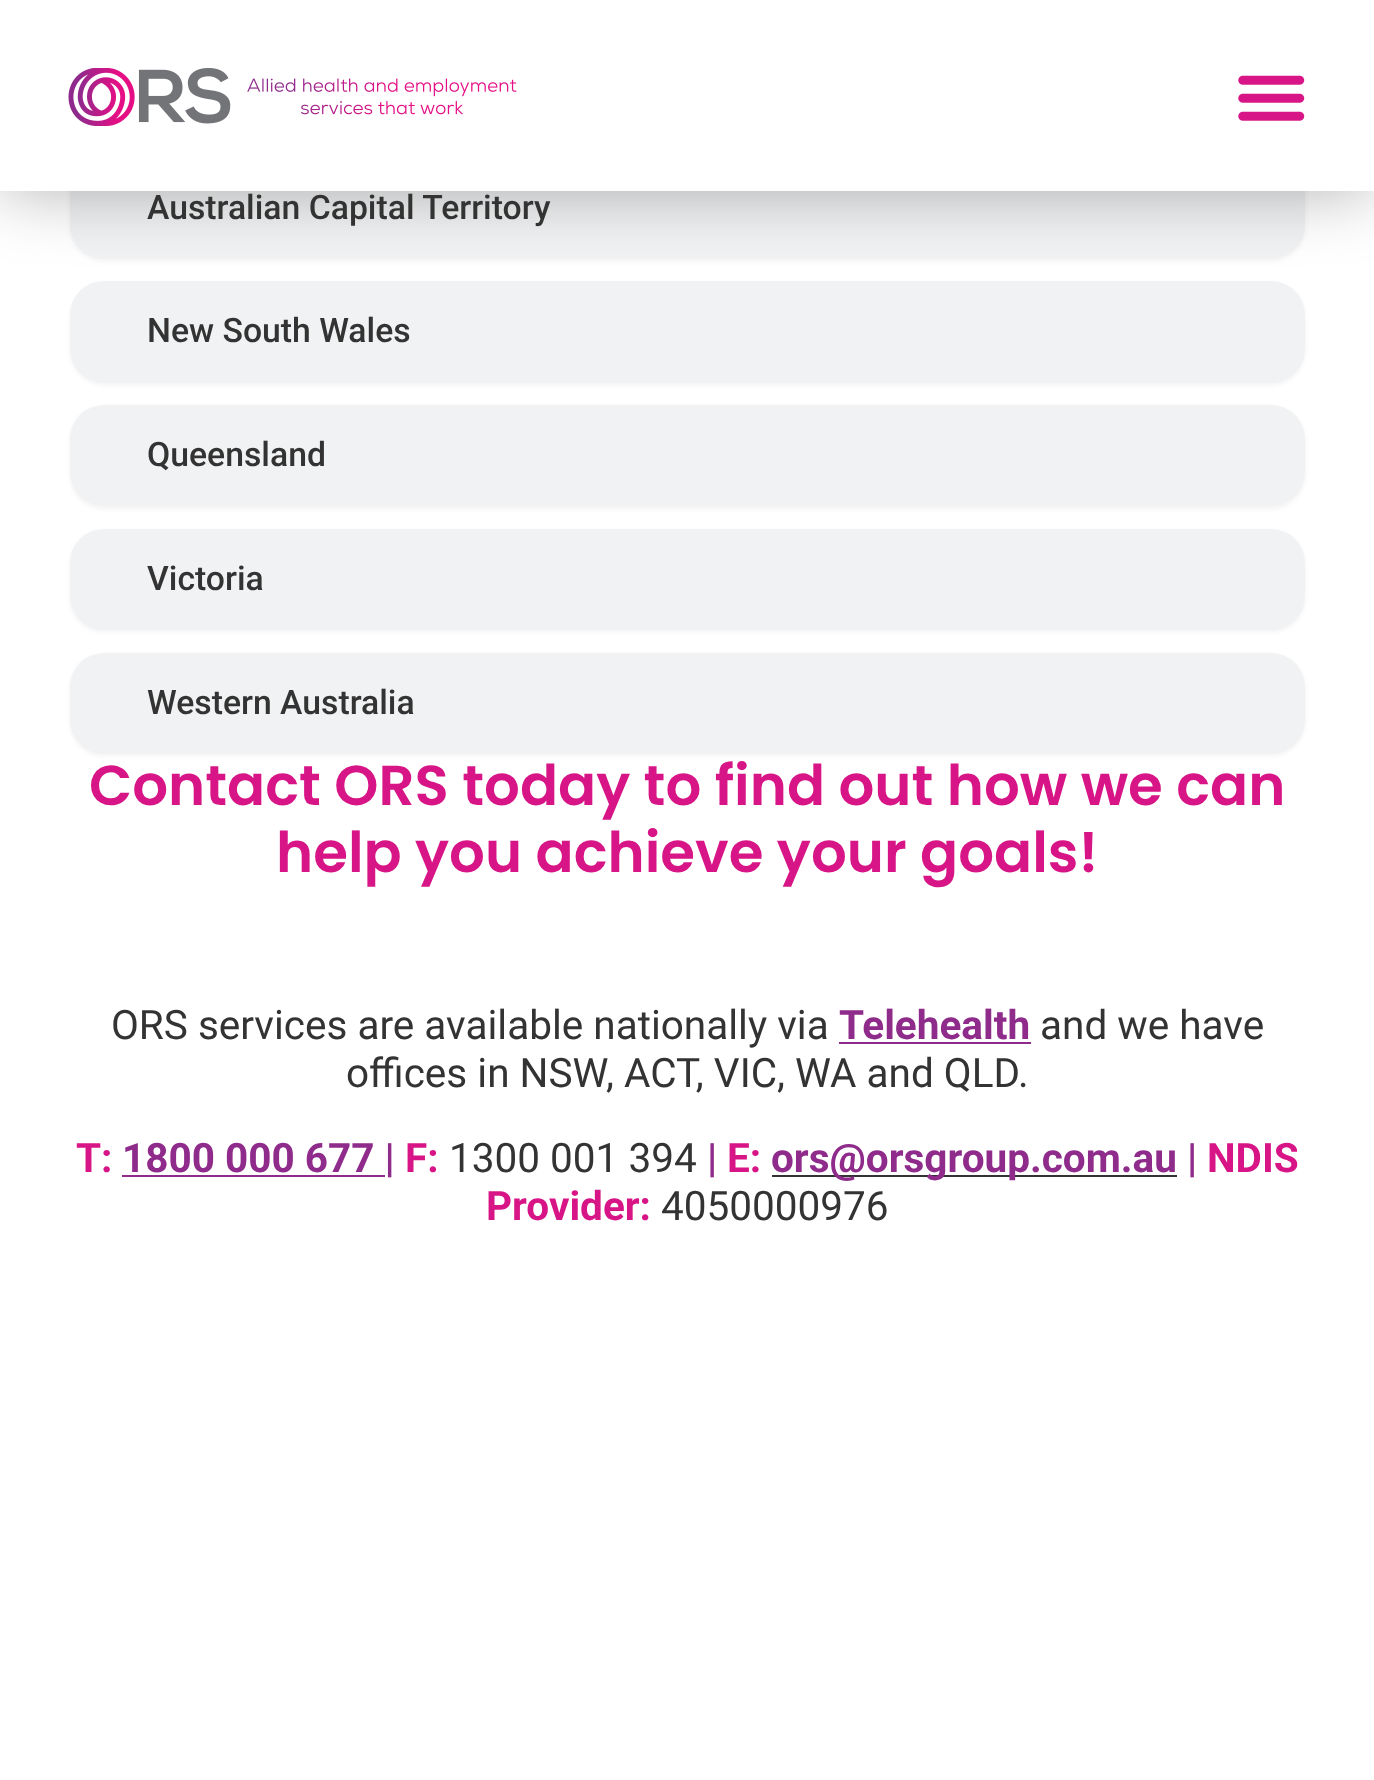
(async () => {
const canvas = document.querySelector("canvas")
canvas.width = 1374
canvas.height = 1780
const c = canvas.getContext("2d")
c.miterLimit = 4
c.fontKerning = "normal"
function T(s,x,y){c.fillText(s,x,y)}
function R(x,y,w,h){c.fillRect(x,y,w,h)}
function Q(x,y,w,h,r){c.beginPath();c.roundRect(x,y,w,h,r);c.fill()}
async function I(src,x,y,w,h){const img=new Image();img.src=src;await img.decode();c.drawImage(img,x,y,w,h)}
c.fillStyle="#fff"
R(0,0,1374,1780)
c.fillStyle="#1018280d"
c.filter="blur(2px)"
c.beginPath()
c.roundRect(70,160,1235,101,34)
c.fill()
c.filter="none"
c.fillStyle="#f1f2f3"
Q(70,158,1235,101,34)
c.fillStyle="#1018280d"
c.filter="blur(2px)"
c.beginPath()
c.roundRect(70,284,1235,101,34)
c.fill()
c.filter="none"
c.fillStyle="#f1f2f3"
Q(70,281,1235,102,34)
c.fillStyle="#0000004d"
c.filter="blur(34px)"
c.beginPath()
c.rect(0,0,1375,191)
c.fill()
c.filter="none"
c.fillStyle="#fff"
R(0,0,1374,191)
await I("1.png",68,68,449,58)
await I("2.png",1238,75,67,46)
c.font="500 33.75px Roboto"
c.fillStyle="#333"
T("Australian Capital Territory",147,219)
T("New South Wales",147,342)
c.fillStyle="#1018280d"
c.filter="blur(2px)"
c.beginPath()
c.roundRect(70,407,1235,102,34)
c.fill()
c.filter="none"
c.fillStyle="#f1f2f3"
Q(70,405,1235,101,34)
c.fillStyle="#333"
T("Queensland",147,466)
c.fillStyle="#1018280d"
c.filter="blur(2px)"
c.beginPath()
c.roundRect(70,531,1235,101,34)
c.fill()
c.filter="none"
c.fillStyle="#f1f2f3"
Q(70,529,1235,101,34)
c.fillStyle="#333"
T("Victoria",147,590)
c.fillStyle="#1018280d"
c.filter="blur(2px)"
c.beginPath()
c.roundRect(70,655,1235,101,34)
c.fill()
c.filter="none"
c.fillStyle="#f1f2f3"
Q(70,653,1235,101,34)
c.fillStyle="#333"
T("Western Australia",147,714)
c.font="600 56.25px Poppins"
c.fillStyle="#d71586"
T("Contact ORS today to find out how we can",89,805)
T("help you achieve your goals!",276,872)
c.font="40.5px Roboto"
c.fillStyle="#333"
T("ORS services are available nationally via",111,1039)
c.font="bold 40.5px Roboto"
c.fillStyle="#8f2b8b"
T("Telehealth",839,1039)
R(839,1042,192,2)
c.font="40.5px Roboto"
c.fillStyle="#333"
T("and we have",1040,1039)
T("offices in NSW, ACT, VIC, WA and QLD.",346,1087)
c.font="bold 40.5px Roboto"
c.fillStyle="#d71586"
T("T:",76,1172)
c.fillStyle="#8f2b8b"
R(122,1175,263,2)
T("1800 000 677 |",122,1172)
c.fillStyle="#d71586"
T("F:",405,1172)
c.font="40.5px Roboto"
c.fillStyle="#333"
T("1300 001 394",449,1172)
c.font="bold 40.5px Roboto"
c.fillStyle="#8f2b8b"
T("|",707,1172)
c.fillStyle="#d71586"
T("E:",727,1172)
c.fillStyle="#333"
R(772,1175,405,2)
c.fillStyle="#8f2b8b"
T("ors@orsgroup.com.au |",771,1172)
c.fillStyle="#d71586"
T("NDIS",1207,1172)
T("Provider:",486,1220)
c.font="40.5px Roboto"
c.fillStyle="#333"
T("4050000976",661,1220)
})()
